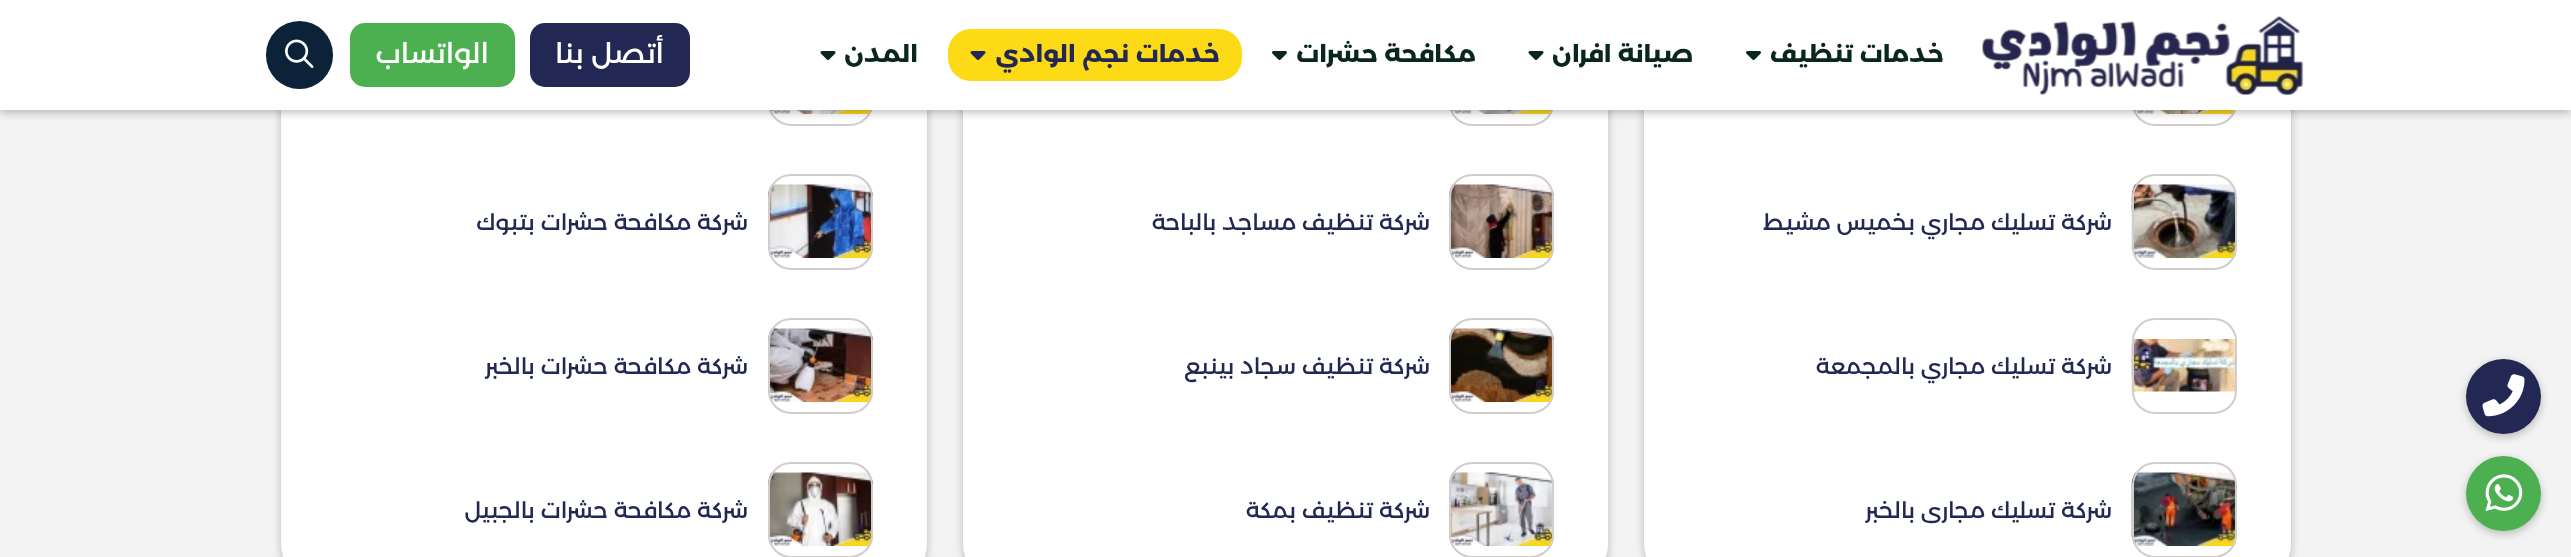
(async () => {
const canvas = document.querySelector("canvas")
canvas.width = 2571
canvas.height = 557
const c = canvas.getContext("2d")
c.miterLimit = 4
c.fontKerning = "normal"
function T(s,x,y){c.fillText(s,x,y)}
function R(x,y,w,h){c.fillRect(x,y,w,h)}
function Q(x,y,w,h,r){c.beginPath();c.roundRect(x,y,w,h,r);c.fill()}
async function I(src,x,y,w,h){const img=new Image();img.src=src;await img.decode();c.drawImage(img,x,y,w,h)}
c.fillStyle="#f3f3f3"
R(0,0,2571,557)
c.fillStyle="#0000003d"
c.filter="blur(4.5px)"
c.beginPath()
c.roundRect(2466,362,75,75,37.5)
c.fill()
c.filter="none"
c.fillStyle="#232753"
c.beginPath()
c.arc(2503.5,396.5,37.5,0,7)
c.fill()
await I("1.png",2482,374,43,43)
c.fillStyle="#0000003d"
c.filter="blur(4.5px)"
c.beginPath()
c.roundRect(2466,459,75,75,37.5)
c.fill()
c.filter="none"
c.fillStyle="#4caf50"
c.beginPath()
c.arc(2503.5,493.5,37.5,0,7)
c.fill()
await I("2.png",2485,474,38,38)
c.fillStyle="#0000003d"
c.filter="blur(4.5px)"
c.beginPath()
c.roundRect(1644,-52,647,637,38)
c.fill()
c.filter="none"
c.fillStyle="#fff"
Q(1644,-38,647,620,38)
await I("8.png",2132,110,104,4)
c.beginPath()
c.roundRect(2133,31,103,94,22)
c.strokeStyle="#d1cdcd"
c.lineWidth=2
c.stroke()
c.fillStyle="#0000003d"
c.filter="blur(4.5px)"
c.beginPath()
c.roundRect(963,-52,645,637,38)
c.fill()
c.filter="none"
c.fillStyle="#fff"
Q(963,-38,645,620,38)
await I("12.png",1450,110,103,4)
c.beginPath()
c.roundRect(1450,31,103,94,22)
c.stroke()
c.fillStyle="#0000003d"
c.filter="blur(4.5px)"
c.beginPath()
c.roundRect(281,-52,646,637,38)
c.fill()
c.filter="none"
c.fillStyle="#fff"
Q(281,-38,646,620,38)
await I("16.png",769,110,103,4)
c.beginPath()
c.roundRect(769,31,103,94,22)
c.stroke()
c.fillStyle="#0000003d"
c.filter="blur(4.5px)"
c.beginPath()
c.rect(0,3,2571,110)
c.fill()
c.filter="none"
c.fillStyle="#fff"
R(0,0,2571,110)
await I("3.png",1982,16,322,79)
c.direction="rtl"
c.font="bold 24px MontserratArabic"
c.fillStyle="#09261f"
T("خدمات تنظيف",1944,62)
await I("4.png",1746,51,15,9)
T("صيانة افران",1693,62)
await I("5.png",1528,51,16,9)
T("مكافحة حشرات",1476,62)
await I("4.png",1272,51,15,9)
c.fillStyle="#fdda16"
Q(948,29,294,52,23)
c.fillStyle="#232753"
T("خدمات نجم الوادي",1220,62)
await I("6.png",970,51,16,9)
c.fillStyle="#09261f"
T("المدن",918,62)
await I("5.png",820,51,16,9)
c.fillStyle="#232753"
Q(530,23,160,64,15)
c.font="28.5px MontserratArabic"
c.fillStyle="#fff"
T("أتصل بنا",664,63)
c.fillStyle="#4caf50"
Q(350,23,165,64,15)
c.fillStyle="#fff"
T("الواتساب",489,63)
c.fillStyle="#0b2239"
Q(266,21,67,68,33.5)
await I("7.png",285,39,29,29)
await I("9.png",2131,184,106,74)
c.beginPath()
c.roundRect(2133,175,103,94,22)
c.stroke()
c.font="22.5px MontserratArabic"
c.fillStyle="#232753"
T("شركة تسليك مجاري بخميس مشيط",2112,230)
await I("10.png",2131,339,106,53)
c.beginPath()
c.roundRect(2133,319,103,94,22)
c.stroke()
T("شركة تسليك مجاري بالمجمعة",2112,374)
await I("11.png",2131,472,106,74)
c.beginPath()
c.roundRect(2133,463,103,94,22)
c.stroke()
T("شركة تسليك مجارى بالخبر",2112,518)
await I("13.png",1449,184,105,74)
c.beginPath()
c.roundRect(1450,175,103,94,22)
c.stroke()
T("شركة تنظيف مساجد بالباحة",1430,230)
await I("14.png",1449,328,105,74)
c.beginPath()
c.roundRect(1450,319,103,94,22)
c.stroke()
T("شركة تنظيف سجاد بينبع",1430,374)
await I("15.png",1449,472,105,74)
c.beginPath()
c.roundRect(1450,463,103,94,22)
c.stroke()
T("شركة تنظيف بمكة",1430,518)
await I("17.png",768,184,105,74)
c.beginPath()
c.roundRect(769,175,103,94,22)
c.stroke()
T("شركة مكافحة حشرات بتبوك",748,230)
await I("18.png",768,328,105,74)
c.beginPath()
c.roundRect(769,319,103,94,22)
c.stroke()
T("شركة مكافحة حشرات بالخبر",748,374)
await I("19.png",768,472,105,74)
c.beginPath()
c.roundRect(769,463,103,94,22)
c.stroke()
T("شركة مكافحة حشرات بالجبيل",748,518)
})()
